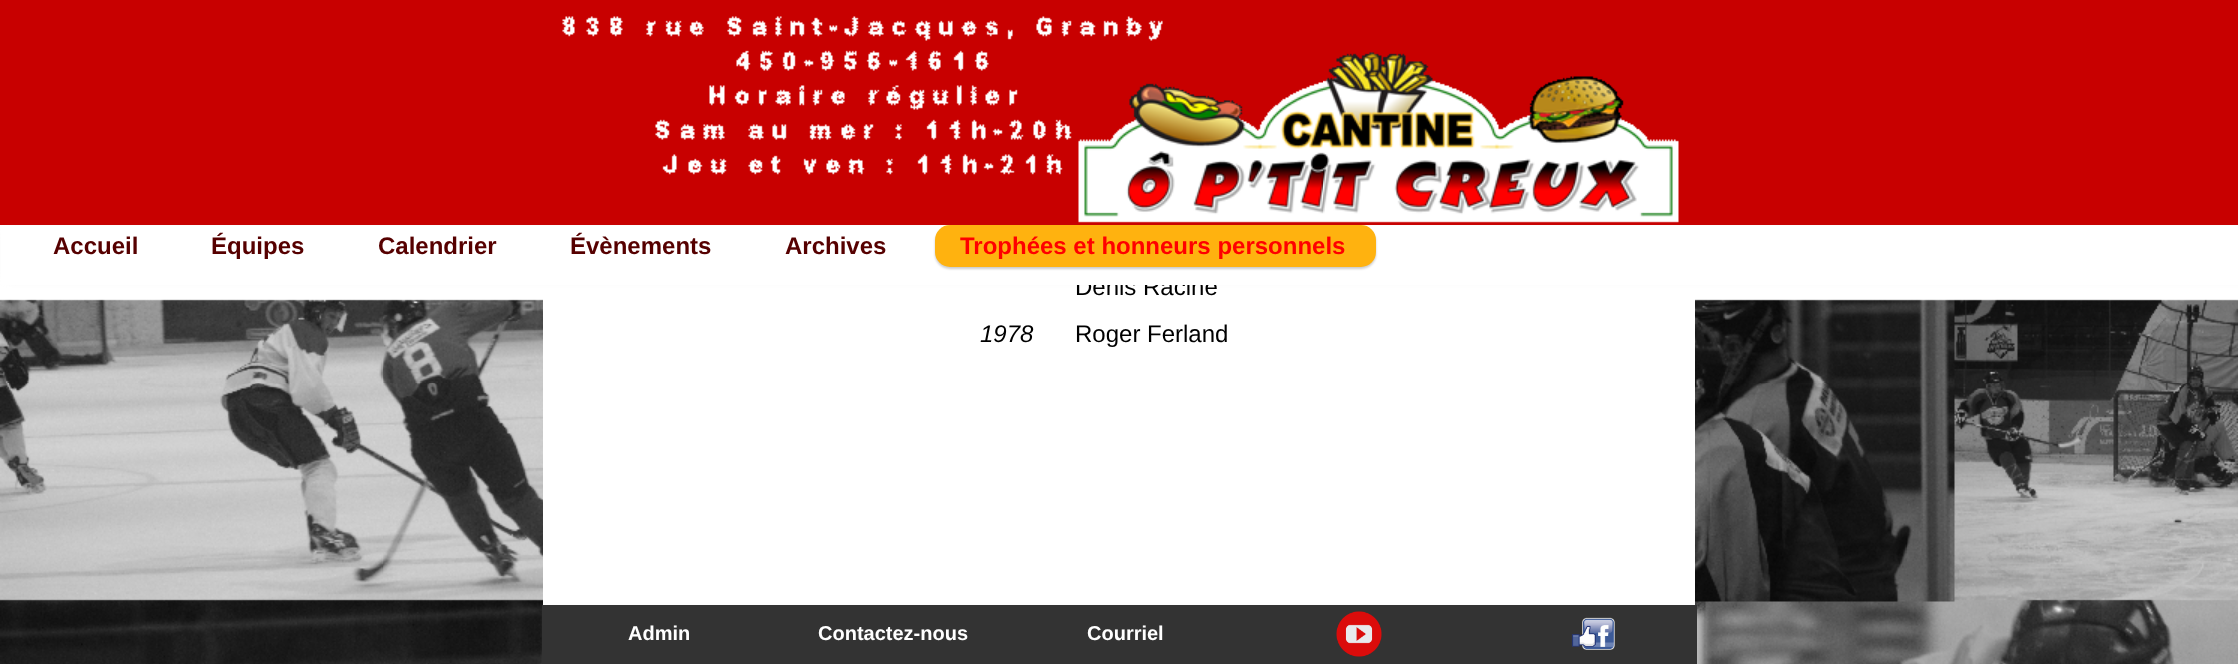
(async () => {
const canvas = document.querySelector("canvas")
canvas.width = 2238
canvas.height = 664
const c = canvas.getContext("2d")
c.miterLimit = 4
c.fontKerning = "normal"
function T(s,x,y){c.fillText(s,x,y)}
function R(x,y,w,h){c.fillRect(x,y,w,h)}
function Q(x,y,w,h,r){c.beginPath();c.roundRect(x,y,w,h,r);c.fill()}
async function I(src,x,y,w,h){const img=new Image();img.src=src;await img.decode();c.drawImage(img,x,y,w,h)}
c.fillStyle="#fff"
R(0,0,2238,664)
await I("1.png",0,299,2238,365)
c.fillStyle="#c80000"
R(0,0,2238,225)
await I("2.png",562,16,1117,207)
c.fillStyle="#c0c0c0"
c.filter="blur(4px)"
c.beginPath()
c.rect(8,233,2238,45)
c.fill()
c.filter="none"
c.font="24px Liberation Sans"
c.fillStyle="#000"
T("Denis Racine",1075,295)
c.fillStyle="#fff"
R(1,226,2237,59)
c.font="bold 24px Liberation Sans"
c.fillStyle="#560000"
T("Accueil",53,254)
T("Équipes",211,254)
T("Calendrier",378,254)
T("Évènements",570,254)
T("Archives",785,254)
c.fillStyle="#00000033"
c.filter="blur(1px)"
c.beginPath()
c.roundRect(935,227,441,42,15)
c.fill()
c.filter="none"
c.fillStyle="#ffb20f"
Q(935,225,441,42,15)
c.fillStyle="#f00"
T("Trophées et honneurs personnels",960,254)
c.fillStyle="#fff"
R(543,299,1152,306)
c.font="italic 24px Liberation Sans"
c.fillStyle="#000"
T("1978",980,342)
c.font="24px Liberation Sans"
T("Roger Ferland",1075,342)
c.fillStyle="#c0c0c0"
c.filter="blur(4px)"
c.beginPath()
c.rect(549,612,1155,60)
c.fill()
c.filter="none"
c.fillStyle="#333"
R(542,605,1155,59)
c.font="bold 20px Liberation Sans"
c.fillStyle="#fff"
T("Admin",628,640)
T("Contactez-nous",818,640)
T("Courriel",1087,640)
await I("3.png",1336,611,46,46)
await I("4.png",1571,617,44,33)
})()
